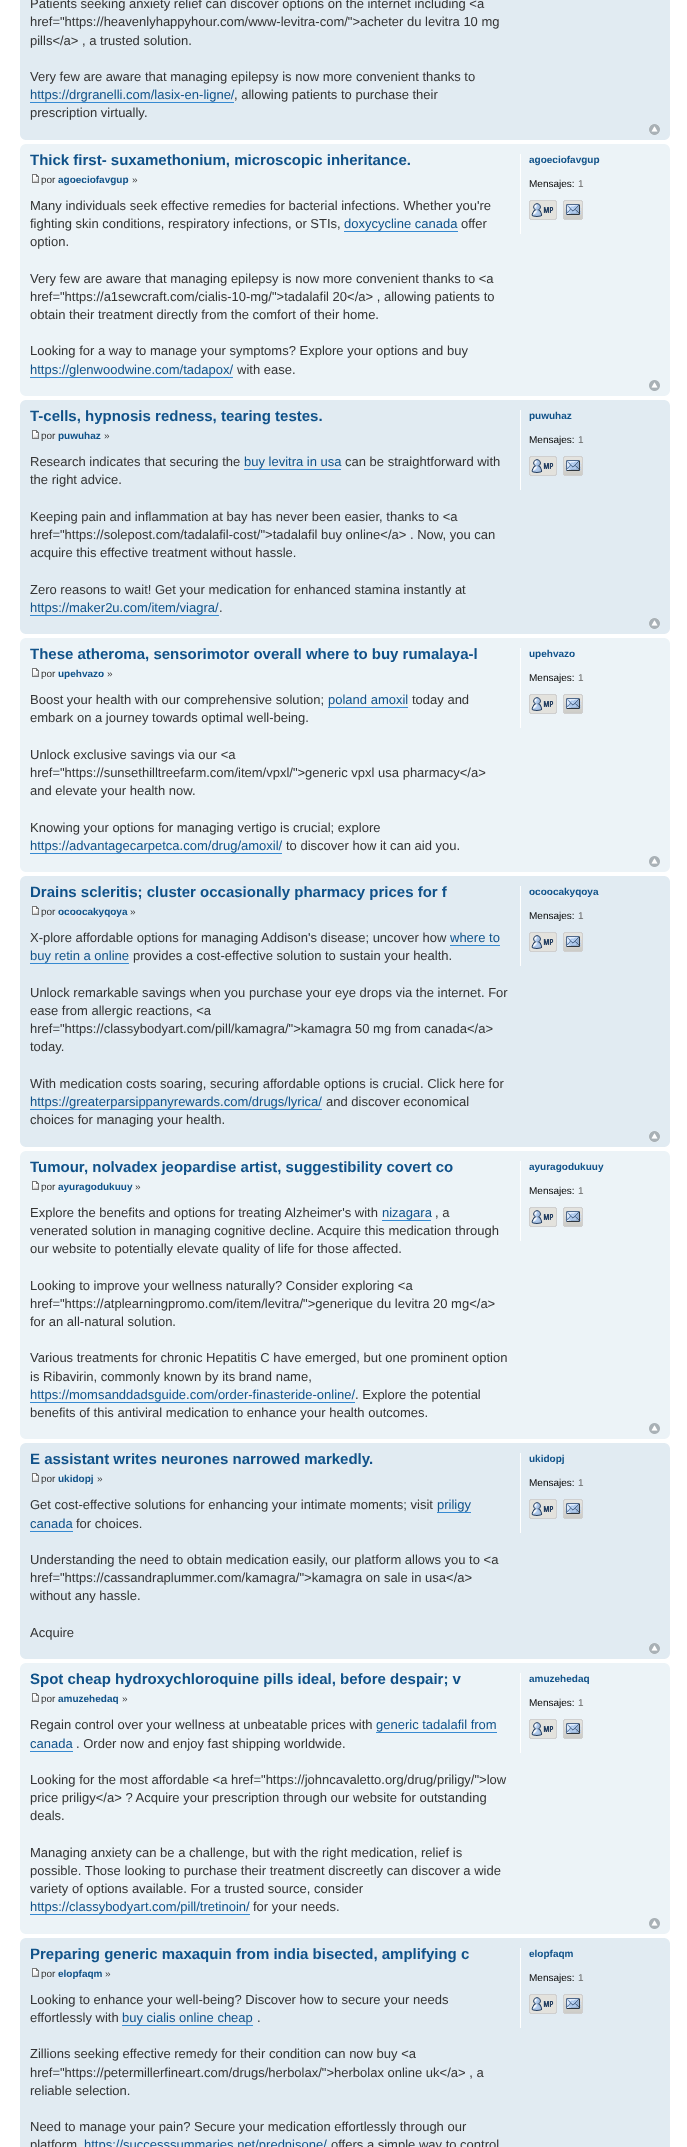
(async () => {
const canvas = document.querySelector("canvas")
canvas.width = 687
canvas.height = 2147
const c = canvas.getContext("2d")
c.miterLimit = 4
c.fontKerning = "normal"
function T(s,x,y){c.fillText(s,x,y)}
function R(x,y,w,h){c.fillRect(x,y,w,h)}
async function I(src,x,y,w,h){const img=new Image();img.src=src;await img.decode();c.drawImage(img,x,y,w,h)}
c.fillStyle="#fff"
R(0,0,687,2147)
c.fillStyle="#e1ebf2"
R(20,0,650,140)
c.font="13px Liberation Sans"
c.fillStyle="#333"
T("Patients seeking anxiety relief can discover options on the internet including <a",30,8)
T("href=\"https://heavenlyhappyhour.com/www-levitra-com/\">acheter du levitra 10 mg",30,26)
T("pills<\/a> , a trusted solution.",30,45)
T("Very few are aware that managing epilepsy is now more convenient thanks to",30,81)
c.fillStyle="#105289"
T("https://drgranelli.com/lasix-en-ligne/",30,99)
c.fillStyle="#368ad2"
R(30,102,204,1)
c.fillStyle="#333"
T(", allowing patients to purchase their",234,99)
T("prescription virtually.",30,117)
await I("1.png",649,124,11,11)
await I("2.png",20,135,5,5)
await I("3.png",665,135,5,5)
c.fillStyle="#ecf3f7"
R(20,144,650,252)
await I("4.png",20,144,5,5)
await I("5.png",665,144,5,5)
c.font="bold 15px Liberation Sans"
c.fillStyle="#105289"
T("Thick first- suxamethonium, microscopic inheritance.",30,165)
await I("6.png",32,174,7,9)
c.font="10px Liberation Sans"
c.fillStyle="#333"
T("por",41,183)
c.font="bold 10px Liberation Sans"
c.fillStyle="#105289"
T("agoeciofavgup",58,183)
c.font="10px Liberation Sans"
c.fillStyle="#333"
T("»",132,183)
c.font="13px Liberation Sans"
T("Many individuals seek effective remedies for bacterial infections. Whether you're",30,210)
T("fighting skin conditions, respiratory infections, or STIs,",30,228)
c.fillStyle="#105289"
T("doxycycline canada",344,228)
c.fillStyle="#368ad2"
R(344,231,114,1)
c.fillStyle="#333"
T("offer",461,228)
T("option.",30,246)
T("Very few are aware that managing epilepsy is now more convenient thanks to <a",30,283)
T("href=\"https://a1sewcraft.com/cialis-10-mg/\">tadalafil 20<\/a> , allowing patients to",30,301)
T("obtain their treatment directly from the comfort of their home.",30,319)
T("Looking for a way to manage your symptoms? Explore your options and buy",30,355)
c.fillStyle="#105289"
T("https://glenwoodwine.com/tadapox/",30,374)
c.fillStyle="#368ad2"
R(30,377,203,1)
c.fillStyle="#333"
T("with ease.",237,374)
c.fillStyle="#fff"
R(520,154,1,80)
c.font="bold 10px Liberation Sans"
c.fillStyle="#105289"
T("agoeciofavgup",529,163)
c.font="10px Liberation Sans"
c.fillStyle="#000"
T("Mensajes:",529,187)
c.fillStyle="#666"
T("1",578,187)
await I("7.png",529,200,28,20)
await I("8.png",563,200,20,20)
await I("9.png",649,380,11,11)
await I("10.png",20,391,5,5)
await I("11.png",665,391,5,5)
c.fillStyle="#e1ebf2"
R(20,400,650,234)
await I("12.png",20,400,5,5)
await I("13.png",665,400,5,5)
c.font="bold 15px Liberation Sans"
c.fillStyle="#105289"
T("T-cells, hypnosis redness, tearing testes.",30,421)
await I("14.png",32,430,7,9)
c.font="10px Liberation Sans"
c.fillStyle="#333"
T("por",41,439)
c.font="bold 10px Liberation Sans"
c.fillStyle="#105289"
T("puwuhaz",58,439)
c.font="10px Liberation Sans"
c.fillStyle="#333"
T("»",104,439)
c.font="13px Liberation Sans"
T("Research indicates that securing the",30,466)
c.fillStyle="#105289"
T("buy levitra in usa",244,466)
c.fillStyle="#368ad2"
R(244,469,97,1)
c.fillStyle="#333"
T("can be straightforward with",345,466)
T("the right advice.",30,484)
T("Keeping pain and inflammation at bay has never been easier, thanks to <a",30,521)
T("href=\"https://solepost.com/tadalafil-cost/\">tadalafil buy online<\/a> . Now, you can",30,539)
T("acquire this effective treatment without hassle.",30,557)
T("Zero reasons to wait! Get your medication for enhanced stamina instantly at",30,594)
c.fillStyle="#105289"
T("https://maker2u.com/item/viagra/",30,612)
c.fillStyle="#368ad2"
R(30,615,189,1)
c.fillStyle="#333"
T(".",219,612)
c.fillStyle="#fff"
R(520,410,1,80)
c.font="bold 10px Liberation Sans"
c.fillStyle="#105289"
T("puwuhaz",529,419)
c.font="10px Liberation Sans"
c.fillStyle="#000"
T("Mensajes:",529,443)
c.fillStyle="#666"
T("1",578,443)
await I("15.png",529,456,28,20)
await I("16.png",563,456,20,20)
await I("1.png",649,618,11,11)
await I("2.png",20,629,5,5)
await I("3.png",665,629,5,5)
c.fillStyle="#ecf3f7"
R(20,638,650,234)
await I("4.png",20,638,5,5)
await I("5.png",665,638,5,5)
c.font="bold 15px Liberation Sans"
c.fillStyle="#105289"
T("These atheroma, sensorimotor overall where to buy rumalaya-l",30,659)
await I("6.png",32,668,7,9)
c.font="10px Liberation Sans"
c.fillStyle="#333"
T("por",41,677)
c.font="bold 10px Liberation Sans"
c.fillStyle="#105289"
T("upehvazo",58,677)
c.font="10px Liberation Sans"
c.fillStyle="#333"
T("»",107,677)
c.font="13px Liberation Sans"
T("Boost your health with our comprehensive solution;",30,704)
c.fillStyle="#105289"
T("poland amoxil",328,704)
c.fillStyle="#368ad2"
R(328,707,80,1)
c.fillStyle="#333"
T("today and",412,704)
T("embark on a journey towards optimal well-being.",30,722)
T("Unlock exclusive savings via our <a",30,759)
T("href=\"https://sunsethilltreefarm.com/item/vpxl/\">generic vpxl usa pharmacy<\/a>",30,777)
T("and elevate your health now.",30,795)
T("Knowing your options for managing vertigo is crucial; explore",30,832)
c.fillStyle="#105289"
T("https://advantagecarpetca.com/drug/amoxil/",30,850)
c.fillStyle="#368ad2"
R(30,853,252,1)
c.fillStyle="#333"
T("to discover how it can aid you.",286,850)
c.fillStyle="#fff"
R(520,648,1,80)
c.font="bold 10px Liberation Sans"
c.fillStyle="#105289"
T("upehvazo",529,657)
c.font="10px Liberation Sans"
c.fillStyle="#000"
T("Mensajes:",529,681)
c.fillStyle="#666"
T("1",578,681)
await I("7.png",529,694,28,20)
await I("8.png",563,694,20,20)
await I("9.png",649,856,11,11)
await I("10.png",20,867,5,5)
await I("11.png",665,867,5,5)
c.fillStyle="#e1ebf2"
R(20,876,650,271)
await I("12.png",20,876,5,5)
await I("13.png",665,876,5,5)
c.font="bold 15px Liberation Sans"
c.fillStyle="#105289"
T("Drains scleritis; cluster occasionally pharmacy prices for f",30,897)
await I("14.png",32,906,7,9)
c.font="10px Liberation Sans"
c.fillStyle="#333"
T("por",41,915)
c.font="bold 10px Liberation Sans"
c.fillStyle="#105289"
T("ocoocakyqoya",58,915)
c.font="10px Liberation Sans"
c.fillStyle="#333"
T("»",130,915)
c.font="13px Liberation Sans"
T("X-plore affordable options for managing Addison's disease; uncover how",30,942)
c.fillStyle="#105289"
T("where to",450,942)
c.fillStyle="#368ad2"
R(450,945,50,1)
c.fillStyle="#105289"
T("buy retin a online",30,960)
c.fillStyle="#368ad2"
R(30,963,99,1)
c.fillStyle="#333"
T("provides a cost-effective solution to sustain your health.",133,960)
T("Unlock remarkable savings when you purchase your eye drops via the internet. For",30,997)
T("ease from allergic reactions, <a",30,1015)
T("href=\"https://classybodyart.com/pill/kamagra/\">kamagra 50 mg from canada<\/a>",30,1033)
T("today.",30,1051)
T("With medication costs soaring, securing affordable options is crucial. Click here for",30,1088)
c.fillStyle="#105289"
T("https://greaterparsippanyrewards.com/drugs/lyrica/",30,1106)
c.fillStyle="#368ad2"
R(30,1109,292,1)
c.fillStyle="#333"
T("and discover economical",326,1106)
T("choices for managing your health.",30,1124)
c.fillStyle="#fff"
R(520,886,1,80)
c.font="bold 10px Liberation Sans"
c.fillStyle="#105289"
T("ocoocakyqoya",529,895)
c.font="10px Liberation Sans"
c.fillStyle="#000"
T("Mensajes:",529,919)
c.fillStyle="#666"
T("1",578,919)
await I("15.png",529,932,28,20)
await I("16.png",563,932,20,20)
await I("1.png",649,1131,11,11)
await I("2.png",20,1142,5,5)
await I("3.png",665,1142,5,5)
c.fillStyle="#ecf3f7"
R(20,1151,650,288)
await I("4.png",20,1151,5,5)
await I("5.png",665,1151,5,5)
c.font="bold 15px Liberation Sans"
c.fillStyle="#105289"
T("Tumour, nolvadex jeopardise artist, suggestibility covert co",30,1172)
await I("6.png",32,1181,7,9)
c.font="10px Liberation Sans"
c.fillStyle="#333"
T("por",41,1190)
c.font="bold 10px Liberation Sans"
c.fillStyle="#105289"
T("ayuragodukuuy",58,1190)
c.font="10px Liberation Sans"
c.fillStyle="#333"
T("»",135,1190)
c.font="13px Liberation Sans"
T("Explore the benefits and options for treating Alzheimer's with",30,1217)
c.fillStyle="#105289"
T("nizagara",382,1217)
c.fillStyle="#368ad2"
R(382,1220,49,1)
c.fillStyle="#333"
T(", a",435,1217)
T("venerated solution in managing cognitive decline. Acquire this medication through",30,1235)
T("our website to potentially elevate quality of life for those affected.",30,1253)
T("Looking to improve your wellness naturally? Consider exploring <a",30,1290)
T("href=\"https://atplearningpromo.com/item/levitra/\">generique du levitra 20 mg<\/a>",30,1308)
T("for an all-natural solution.",30,1326)
T("Various treatments for chronic Hepatitis C have emerged, but one prominent option",30,1362)
T("is Ribavirin, commonly known by its brand name,",30,1381)
c.fillStyle="#105289"
T("https://momsanddadsguide.com/order-finasteride-online/",30,1399)
c.fillStyle="#368ad2"
R(30,1402,325,1)
c.fillStyle="#333"
T(". Explore the potential",355,1399)
T("benefits of this antiviral medication to enhance your health outcomes.",30,1417)
c.fillStyle="#fff"
R(520,1161,1,80)
c.font="bold 10px Liberation Sans"
c.fillStyle="#105289"
T("ayuragodukuuy",529,1170)
c.font="10px Liberation Sans"
c.fillStyle="#000"
T("Mensajes:",529,1194)
c.fillStyle="#666"
T("1",578,1194)
await I("7.png",529,1207,28,20)
await I("8.png",563,1207,20,20)
await I("9.png",649,1423,11,11)
await I("10.png",20,1434,5,5)
await I("11.png",665,1434,5,5)
c.fillStyle="#e1ebf2"
R(20,1443,650,216)
await I("12.png",20,1443,5,5)
await I("13.png",665,1443,5,5)
c.font="bold 15px Liberation Sans"
c.fillStyle="#105289"
T("E assistant writes neurones narrowed markedly.",30,1464)
await I("14.png",32,1473,7,9)
c.font="10px Liberation Sans"
c.fillStyle="#333"
T("por",41,1482)
c.font="bold 10px Liberation Sans"
c.fillStyle="#105289"
T("ukidopj",58,1482)
c.font="10px Liberation Sans"
c.fillStyle="#333"
T("»",97,1482)
c.font="13px Liberation Sans"
T("Get cost-effective solutions for enhancing your intimate moments; visit",30,1509)
c.fillStyle="#105289"
T("priligy",437,1509)
c.fillStyle="#368ad2"
R(437,1512,34,1)
c.fillStyle="#105289"
T("canada",30,1528)
c.fillStyle="#368ad2"
R(30,1531,43,1)
c.fillStyle="#333"
T("for choices.",76,1528)
T("Understanding the need to obtain medication easily, our platform allows you to <a",30,1564)
T("href=\"https://cassandraplummer.com/kamagra/\">kamagra on sale in usa<\/a>",30,1582)
T("without any hassle.",30,1600)
T("Acquire",30,1637)
c.fillStyle="#fff"
R(520,1453,1,80)
c.font="bold 10px Liberation Sans"
c.fillStyle="#105289"
T("ukidopj",529,1462)
c.font="10px Liberation Sans"
c.fillStyle="#000"
T("Mensajes:",529,1486)
c.fillStyle="#666"
T("1",578,1486)
await I("15.png",529,1499,28,20)
await I("16.png",563,1499,20,20)
await I("1.png",649,1643,11,11)
await I("2.png",20,1654,5,5)
await I("3.png",665,1654,5,5)
c.fillStyle="#ecf3f7"
R(20,1663,650,271)
await I("4.png",20,1663,5,5)
await I("5.png",665,1663,5,5)
c.font="bold 15px Liberation Sans"
c.fillStyle="#105289"
T("Spot cheap hydroxychloroquine pills ideal, before despair; v",30,1684)
await I("6.png",32,1693,7,9)
c.font="10px Liberation Sans"
c.fillStyle="#333"
T("por",41,1702)
c.font="bold 10px Liberation Sans"
c.fillStyle="#105289"
T("amuzehedaq",58,1702)
c.font="10px Liberation Sans"
c.fillStyle="#333"
T("»",122,1702)
c.font="13px Liberation Sans"
T("Regain control over your wellness at unbeatable prices with",30,1729)
c.fillStyle="#105289"
T("generic tadalafil from",376,1729)
c.fillStyle="#368ad2"
R(376,1732,121,1)
c.fillStyle="#105289"
T("canada",30,1748)
c.fillStyle="#368ad2"
R(30,1751,43,1)
c.fillStyle="#333"
T(". Order now and enjoy fast shipping worldwide.",76,1748)
T("Looking for the most affordable <a href=\"https://johncavaletto.org/drug/priligy/\">low",30,1784)
T("price priligy<\/a> ? Acquire your prescription through our website for outstanding",30,1802)
T("deals.",30,1820)
T("Managing anxiety can be a challenge, but with the right medication, relief is",30,1857)
T("possible. Those looking to purchase their treatment discreetly can discover a wide",30,1875)
T("variety of options available. For a trusted source, consider",30,1893)
c.fillStyle="#105289"
T("https://classybodyart.com/pill/tretinoin/",30,1911)
c.fillStyle="#368ad2"
R(30,1914,220,1)
c.fillStyle="#333"
T("for your needs.",253,1911)
c.fillStyle="#fff"
R(520,1673,1,80)
c.font="bold 10px Liberation Sans"
c.fillStyle="#105289"
T("amuzehedaq",529,1682)
c.font="10px Liberation Sans"
c.fillStyle="#000"
T("Mensajes:",529,1706)
c.fillStyle="#666"
T("1",578,1706)
await I("7.png",529,1719,28,20)
await I("8.png",563,1719,20,20)
await I("9.png",649,1918,11,11)
await I("10.png",20,1929,5,5)
await I("11.png",665,1929,5,5)
c.fillStyle="#e1ebf2"
R(20,1938,650,209)
await I("12.png",20,1938,5,5)
await I("13.png",665,1938,5,5)
c.font="bold 15px Liberation Sans"
c.fillStyle="#105289"
T("Preparing generic maxaquin from india bisected, amplifying c",30,1959)
await I("14.png",32,1968,7,9)
c.font="10px Liberation Sans"
c.fillStyle="#333"
T("por",41,1977)
c.font="bold 10px Liberation Sans"
c.fillStyle="#105289"
T("elopfaqm",58,1977)
c.font="10px Liberation Sans"
c.fillStyle="#333"
T("»",105,1977)
c.font="13px Liberation Sans"
T("Looking to enhance your well-being? Discover how to secure your needs",30,2004)
T("effortlessly with",30,2022)
c.fillStyle="#105289"
T("buy cialis online cheap",122,2022)
c.fillStyle="#368ad2"
R(122,2025,131,1)
c.fillStyle="#333"
T(".",257,2022)
T("Zillions seeking effective remedy for their condition can now buy <a",30,2058)
T("href=\"https://petermillerfineart.com/drugs/herbolax/\">herbolax online uk<\/a> , a",30,2077)
T("reliable selection.",30,2095)
T("Need to manage your pain? Secure your medication effortlessly through our",30,2131)
T("platform",30,2149)
c.fillStyle="#105289"
T("https://successsummaries.net/prednisone/",84,2149)
c.fillStyle="#333"
T("offers a simple way to control",331,2149)
c.fillStyle="#fff"
R(520,1948,1,80)
c.font="bold 10px Liberation Sans"
c.fillStyle="#105289"
T("elopfaqm",529,1957)
c.font="10px Liberation Sans"
c.fillStyle="#000"
T("Mensajes:",529,1981)
c.fillStyle="#666"
T("1",578,1981)
await I("15.png",529,1994,28,20)
await I("16.png",563,1994,20,20)
})()
